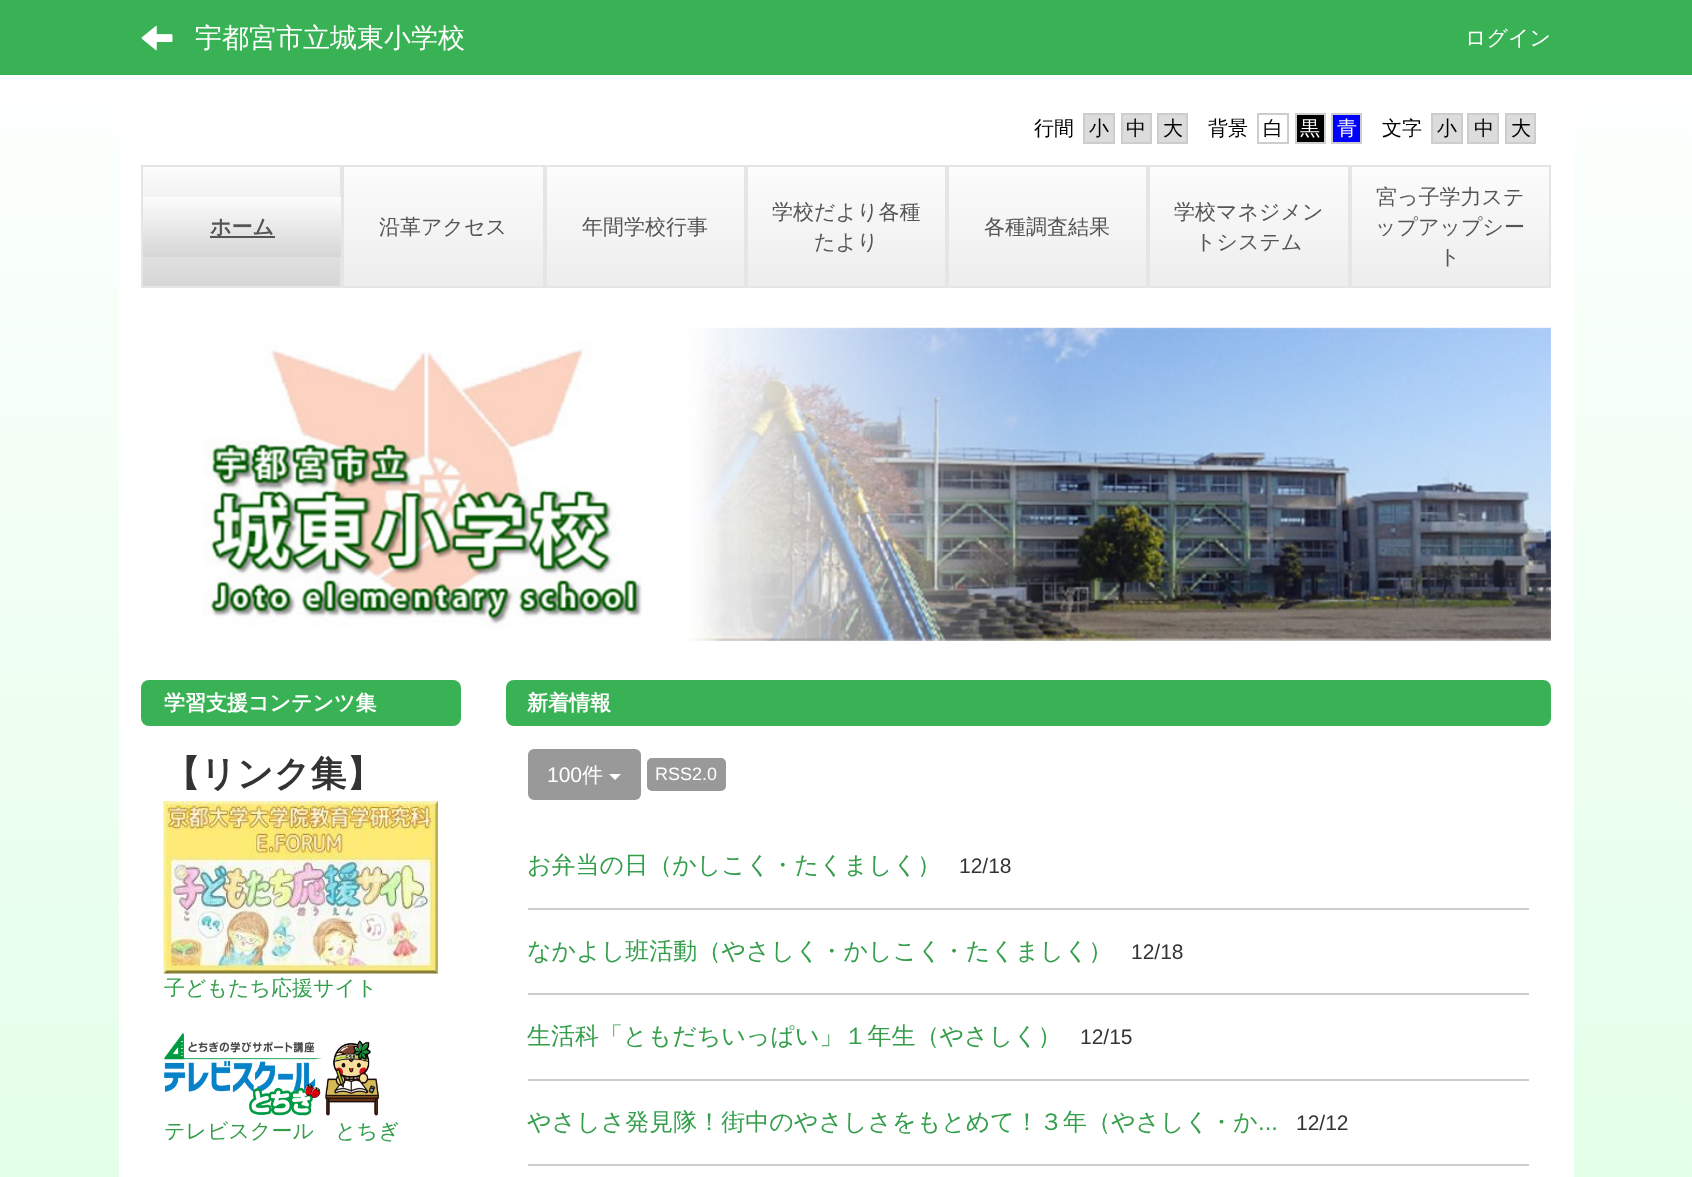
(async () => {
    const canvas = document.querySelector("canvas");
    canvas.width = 1692;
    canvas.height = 1177;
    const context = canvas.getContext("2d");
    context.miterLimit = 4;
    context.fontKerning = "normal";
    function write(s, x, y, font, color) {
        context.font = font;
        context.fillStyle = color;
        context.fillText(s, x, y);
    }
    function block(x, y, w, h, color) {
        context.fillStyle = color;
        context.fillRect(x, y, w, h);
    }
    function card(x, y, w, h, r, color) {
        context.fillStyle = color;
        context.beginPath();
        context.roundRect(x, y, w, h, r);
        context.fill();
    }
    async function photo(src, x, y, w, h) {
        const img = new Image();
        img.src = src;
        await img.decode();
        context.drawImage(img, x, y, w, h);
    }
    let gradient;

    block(0, 0, 1692, 1177, "rgb(255, 255, 255)");
    gradient = context.createLinearGradient(846, 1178, 846, 0);
    gradient.addColorStop(0, "rgb(227, 255, 233)");
    gradient.addColorStop(1, "rgb(255, 255, 255)");
    context.fillStyle = gradient;
    context.fillRect(0, 105, 1692, 1072);
    block(0, 0, 1692, 75, "rgb(57, 178, 85)");
    await photo("media/1.png", 141, 25, 32, 26);
    write("宇都宮市立城東小学校", 195, 47, "500 27px WenQuanYi Zen Hei", "rgb(255, 255, 255)");
    write("ログイン", 1465, 45, "500 21px WenQuanYi Zen Hei", "rgb(255, 255, 255)");
    block(119, 105, 1455, 1072, "rgb(255, 255, 255)");
    write("行間", 1034, 135, "500 20px WenQuanYi Zen Hei", "rgb(0, 0, 0)");
    context.fillStyle = "rgb(220, 220, 220)";
    context.beginPath();
    context.rect(1084, 114, 30, 29);
    context.fill();
    context.strokeStyle = "rgb(205, 205, 205)";
    context.lineWidth = 2;
    context.stroke();
    write("小", 1089, 135, "500 20px WenQuanYi Zen Hei", "rgb(0, 0, 0)");
    context.fillStyle = "rgb(220, 220, 220)";
    context.beginPath();
    context.rect(1122, 114, 29, 29);
    context.fill();
    context.stroke();
    write("中", 1126, 135, "500 20px WenQuanYi Zen Hei", "rgb(0, 0, 0)");
    context.fillStyle = "rgb(220, 220, 220)";
    context.beginPath();
    context.rect(1158, 114, 29, 29);
    context.fill();
    context.stroke();
    write("大", 1163, 135, "500 20px WenQuanYi Zen Hei", "rgb(0, 0, 0)");
    write("背景", 1208, 135, "500 20px WenQuanYi Zen Hei", "rgb(0, 0, 0)");
    context.strokeRect(1258, 114, 30, 29);
    write("白", 1263, 135, "500 20px WenQuanYi Zen Hei", "rgb(0, 0, 0)");
    context.beginPath();
    context.rect(1296, 114, 29, 29);
    context.fill();
    context.stroke();
    write("黒", 1300, 135, "500 20px WenQuanYi Zen Hei", "rgb(255, 255, 255)");
    context.fillStyle = "rgb(0, 0, 255)";
    context.beginPath();
    context.rect(1332, 114, 29, 29);
    context.fill();
    context.stroke();
    write("青", 1337, 135, "500 20px WenQuanYi Zen Hei", "rgb(255, 255, 255)");
    write("文字", 1382, 135, "500 20px WenQuanYi Zen Hei", "rgb(0, 0, 0)");
    context.fillStyle = "rgb(220, 220, 220)";
    context.beginPath();
    context.rect(1432, 114, 30, 29);
    context.fill();
    context.stroke();
    write("小", 1437, 135, "500 20px WenQuanYi Zen Hei", "rgb(0, 0, 0)");
    context.fillStyle = "rgb(220, 220, 220)";
    context.beginPath();
    context.rect(1468, 114, 30, 29);
    context.fill();
    context.stroke();
    write("中", 1474, 135, "500 20px WenQuanYi Zen Hei", "rgb(0, 0, 0)");
    context.fillStyle = "rgb(220, 220, 220)";
    context.beginPath();
    context.rect(1506, 114, 29, 29);
    context.fill();
    context.stroke();
    write("大", 1511, 135, "500 20px WenQuanYi Zen Hei", "rgb(0, 0, 0)");
    gradient = context.createLinearGradient(242, 167, 242, 287);
    gradient.addColorStop(0, "rgb(252, 252, 252)");
    gradient.addColorStop(1, "rgb(214, 214, 214)");
    context.fillStyle = gradient;
    context.fillRect(143, 167, 197, 119);
    context.strokeStyle = "rgb(229, 229, 229)";
    context.strokeRect(142, 166, 199, 121);
    gradient = context.createLinearGradient(242, 197, 242, 257);
    gradient.addColorStop(0, "rgb(252, 252, 252)");
    gradient.addColorStop(1, "rgb(214, 214, 214)");
    context.fillStyle = gradient;
    context.fillRect(143, 197, 198, 60);
    block(210, 236, 65, 2, "rgb(85, 85, 85)");
    write("ホーム", 210, 234, "bold 21px WenQuanYi Zen Hei", "rgb(85, 85, 85)");
    gradient = context.createLinearGradient(443, 167, 443, 287);
    gradient.addColorStop(0, "rgb(252, 252, 252)");
    gradient.addColorStop(1, "rgb(237, 237, 237)");
    context.fillStyle = gradient;
    context.fillRect(344, 167, 199, 119);
    context.strokeRect(343, 166, 201, 121);
    write("沿革アクセス", 379, 234, "500 21px WenQuanYi Zen Hei", "rgb(85, 85, 85)");
    gradient = context.createLinearGradient(645, 167, 645, 287);
    gradient.addColorStop(0, "rgb(252, 252, 252)");
    gradient.addColorStop(1, "rgb(237, 237, 237)");
    context.fillStyle = gradient;
    context.fillRect(547, 167, 197, 119);
    context.strokeRect(546, 166, 199, 121);
    write("年間学校行事", 582, 234, "500 21px WenQuanYi Zen Hei", "rgb(85, 85, 85)");
    gradient = context.createLinearGradient(846, 167, 846, 287);
    gradient.addColorStop(0, "rgb(252, 252, 252)");
    gradient.addColorStop(1, "rgb(237, 237, 237)");
    context.fillStyle = gradient;
    context.fillRect(748, 167, 197, 119);
    context.strokeRect(747, 166, 199, 121);
    write("学校だより各種", 772, 219, "500 21px WenQuanYi Zen Hei", "rgb(85, 85, 85)");
    write("たより", 814, 249, "500 21px WenQuanYi Zen Hei", "rgb(85, 85, 85)");
    gradient = context.createLinearGradient(1047, 167, 1047, 287);
    gradient.addColorStop(0, "rgb(252, 252, 252)");
    gradient.addColorStop(1, "rgb(237, 237, 237)");
    context.fillStyle = gradient;
    context.fillRect(949, 167, 197, 119);
    context.strokeRect(948, 166, 199, 121);
    write("各種調査結果", 984, 234, "500 21px WenQuanYi Zen Hei", "rgb(85, 85, 85)");
    gradient = context.createLinearGradient(1249, 167, 1249, 287);
    gradient.addColorStop(0, "rgb(252, 252, 252)");
    gradient.addColorStop(1, "rgb(237, 237, 237)");
    context.fillStyle = gradient;
    context.fillRect(1150, 167, 198, 119);
    context.strokeRect(1149, 166, 200, 121);
    write("学校マネジメン", 1174, 219, "500 21px WenQuanYi Zen Hei", "rgb(85, 85, 85)");
    write("トシステム", 1195, 249, "500 21px WenQuanYi Zen Hei", "rgb(85, 85, 85)");
    gradient = context.createLinearGradient(1451, 167, 1451, 287);
    gradient.addColorStop(0, "rgb(252, 252, 252)");
    gradient.addColorStop(1, "rgb(237, 237, 237)");
    context.fillStyle = gradient;
    context.fillRect(1352, 167, 197, 119);
    context.strokeRect(1351, 166, 199, 121);
    write("宮っ子学力ステ", 1376, 204, "500 21px WenQuanYi Zen Hei", "rgb(85, 85, 85)");
    write("ップアップシー", 1375, 234, "500 21px WenQuanYi Zen Hei", "rgb(85, 85, 85)");
    write("ト", 1439, 264, "500 21px WenQuanYi Zen Hei", "rgb(85, 85, 85)");
    await photo("media/2.png", 164, 325, 1387, 316);
    card(141, 680, 320, 46, 8, "rgb(57, 178, 85)");
    write("学習支援コンテンツ集", 164, 710, "bold 21px WenQuanYi Zen Hei", "rgb(255, 255, 255)");
    write("【リンク集】", 164, 786, "bold 36px WenQuanYi Zen Hei", "rgb(51, 51, 51)");
    await photo("media/3.png", 163, 801, 275, 173);
    write("子どもたち応援サイト", 164, 995, "500 21px WenQuanYi Zen Hei", "rgb(52, 158, 75)");
    await photo("media/4.png", 164, 1033, 215, 83);
    write("テレビスクール　とちぎ", 164, 1138, "500 21px WenQuanYi Zen Hei", "rgb(52, 158, 75)");
    card(506, 680, 1045, 46, 8, "rgb(57, 178, 85)");
    write("新着情報", 527, 710, "bold 21px WenQuanYi Zen Hei", "rgb(255, 255, 255)");
    context.fillStyle = "rgb(153, 153, 153)";
    context.beginPath();
    context.roundRect(529, 750, 111, 49, 5);
    context.fill();
    context.strokeStyle = "rgb(153, 153, 153)";
    context.stroke();
    write("100", 547, 782, "21px Liberation Sans", "rgb(255, 255, 255)");
    write("件", 582, 782, "500 21px WenQuanYi Zen Hei", "rgb(255, 255, 255)");
    context.beginPath();
    context.moveTo(609, 774);
    context.lineTo(621, 774);
    context.lineTo(615, 780);
    context.closePath();
    context.fill();
    context.fillStyle = "rgb(153, 153, 153)";
    context.beginPath();
    context.roundRect(648, 759, 77, 31, 4);
    context.fill();
    context.stroke();
    write("RSS2.0", 655, 780, "18px Liberation Sans", "rgb(255, 255, 255)");
    write("お弁当の日（かしこく・たくましく）", 527, 873, "500 24px WenQuanYi Zen Hei", "rgb(52, 158, 75)");
    write("12/18", 959, 873, "21px Liberation Sans", "rgb(51, 51, 51)");
    block(528, 908, 1001, 2, "rgb(204, 204, 204)");
    write("なかよし班活動（やさしく・かしこく・たくましく）", 527, 959, "500 24px WenQuanYi Zen Hei", "rgb(52, 158, 75)");
    write("12/18", 1131, 959, "21px Liberation Sans", "rgb(51, 51, 51)");
    block(528, 993, 1001, 2, "rgb(204, 204, 204)");
    write("生活科「ともだちいっぱい」１年生（やさしく）", 527, 1044, "500 24px WenQuanYi Zen Hei", "rgb(52, 158, 75)");
    write("12/15", 1080, 1044, "21px Liberation Sans", "rgb(51, 51, 51)");
    block(528, 1079, 1001, 2, "rgb(204, 204, 204)");
    write("やさしさ発見隊！街中のやさしさをもとめて！３年（やさしく・か", 527, 1130, "500 24px WenQuanYi Zen Hei", "rgb(52, 158, 75)");
    write("...", 1258, 1130, "24px Liberation Sans", "rgb(52, 158, 75)");
    write("12/12", 1296, 1130, "21px Liberation Sans", "rgb(51, 51, 51)");
    block(528, 1164, 1001, 2, "rgb(204, 204, 204)");
})();
